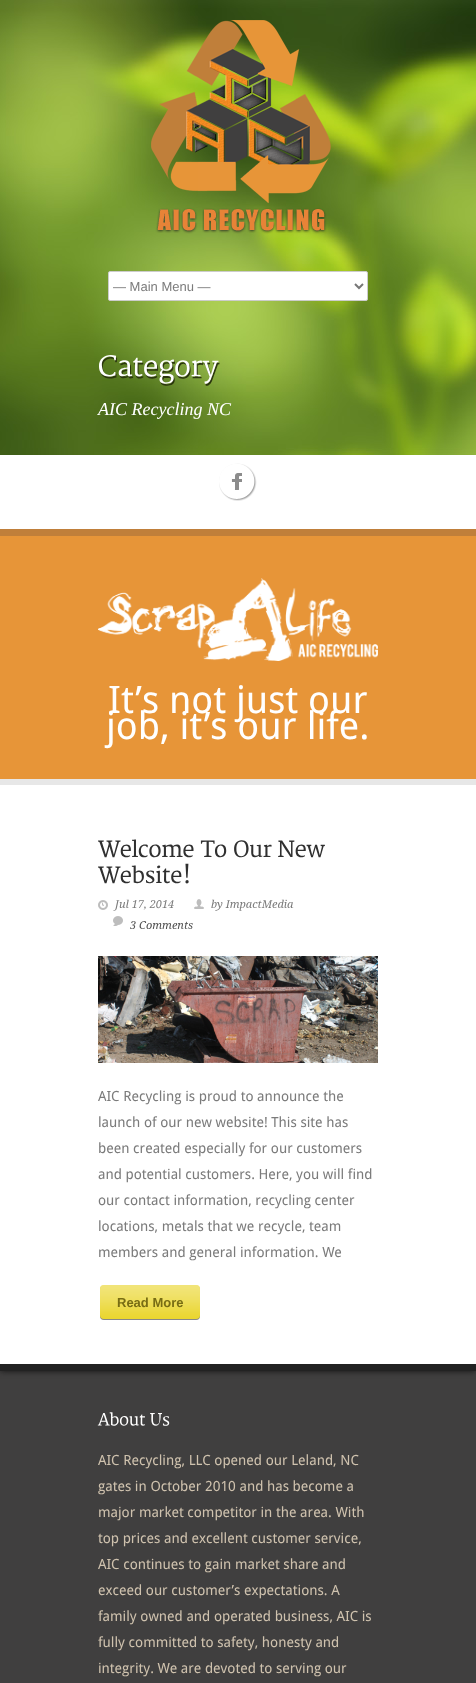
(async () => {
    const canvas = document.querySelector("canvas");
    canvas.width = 476;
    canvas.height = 1683;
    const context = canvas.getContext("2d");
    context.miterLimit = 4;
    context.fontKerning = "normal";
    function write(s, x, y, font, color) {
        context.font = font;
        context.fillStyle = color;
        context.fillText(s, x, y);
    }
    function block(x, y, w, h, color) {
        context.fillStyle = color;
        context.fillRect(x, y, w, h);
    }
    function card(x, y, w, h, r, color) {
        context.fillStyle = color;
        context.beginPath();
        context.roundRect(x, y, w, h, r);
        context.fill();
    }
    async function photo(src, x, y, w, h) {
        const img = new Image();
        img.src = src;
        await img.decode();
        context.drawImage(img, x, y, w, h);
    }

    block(0, 0, 476, 1683, "rgb(255, 255, 255)");
    await photo("media/1.png", 0, 0, 476, 455);
    await photo("media/2.png", 151, 20, 180, 214);
    context.beginPath();
    context.roundRect(108.5, 271.5, 259, 29, 1.5);
    context.fill();
    context.strokeStyle = "rgb(204, 204, 204)";
    context.stroke();
    context.beginPath();
    context.moveTo(355, 284);
    context.lineTo(359, 288);
    context.lineTo(363, 284);
    context.strokeStyle = "rgb(119, 119, 119)";
    context.lineWidth = 2;
    context.stroke();
    write("— Main Menu —", 113, 291, "13px Liberation Sans", "rgb(123, 123, 123)");
    await photo("media/3.png", 99, 355, 121, 31);
    write("AIC Recycling NC", 98, 415, "italic 18px Liberation Serif", "rgb(255, 255, 255)");
    await photo("media/4.png", 219, 463, 38, 38);
    block(0, 529, 476, 7, "rgb(192, 127, 58)");
    block(0, 536, 476, 243, "rgb(231, 149, 56)");
    await photo("media/5.png", 98, 578, 280, 83);
    write("It’s not just our", 108, 713, "38px Droid Sans", "rgb(255, 255, 255)");
    write("job, it’s our life.", 106, 739, "38px Droid Sans", "rgb(255, 255, 255)");
    block(0, 779, 476, 6, "rgb(231, 231, 231)");
    await photo("media/6.png", 98, 839, 96, 19);
    await photo("media/7.png", 200, 840, 27, 18);
    await photo("media/8.png", 234, 840, 38, 18);
    await photo("media/9.png", 278, 840, 47, 18);
    await photo("media/10.png", 98, 863, 91, 21);
    await photo("media/11.png", 98, 900, 10, 10);
    write("Jul 17, 2014", 115, 908, "italic 11px Droid Serif", "rgb(123, 123, 123)");
    await photo("media/12.png", 194, 899, 10, 10);
    write("by ImpactMedia", 211, 908, "italic 11px Droid Serif", "rgb(123, 123, 123)");
    await photo("media/13.png", 113, 916, 10, 10);
    write("3 Comments", 130, 929, "italic 11px Droid Serif", "rgb(79, 79, 79)");
    await photo("media/14.png", 98, 956, 280, 107);
    write("AIC Recycling is proud to announce the", 98, 1101, "14px Droid Sans", "rgb(123, 123, 123)");
    write("launch of our new website! This site has", 98, 1127, "14px Droid Sans", "rgb(123, 123, 123)");
    write("been created especially for our customers", 98, 1153, "14px Droid Sans", "rgb(123, 123, 123)");
    write("and potential customers. Here, you will find", 98, 1179, "14px Droid Sans", "rgb(123, 123, 123)");
    write("our contact information, recycling center", 98, 1205, "14px Droid Sans", "rgb(123, 123, 123)");
    write("locations, metals that we recycle, team", 98, 1231, "14px Droid Sans", "rgb(123, 123, 123)");
    write("members and general information. We", 98, 1257, "14px Droid Sans", "rgb(123, 123, 123)");
    context.fillStyle = "rgb(136, 136, 136)";
    context.filter = "blur(0.5px)";
    context.beginPath();
    context.roundRect(100, 1286, 100, 34, 4);
    context.fill();
    context.filter = "none";
    card(100, 1285, 100, 34, 4, "rgb(233, 212, 36)");
    await photo("media/15.png", 100, 1285, 100, 34);
    write("Read More", 117, 1307, "bold 13px Liberation Sans", "rgb(120, 109, 20)");
    block(0, 1371, 476, 312, "rgb(64, 63, 63)");
    context.save();
    context.beginPath();
    context.rect(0, 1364, 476, 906);
    context.clip();
    context.fillStyle = "rgb(17, 17, 17)";
    context.filter = "blur(3px)";
    context.beginPath();
    context.rect(0, 1364, 476, 7);
    context.fill();
    context.filter = "none";
    context.restore();
    block(0, 1364, 476, 7, "rgb(34, 34, 34)");
    await photo("media/16.png", 97, 1412, 48, 14);
    await photo("media/17.png", 150, 1413, 20, 13);
    write("AIC Recycling, LLC opened our Leland, NC", 98, 1465, "14px Droid Sans", "rgb(207, 194, 174)");
    write("gates in October 2010 and has become a", 98, 1491, "14px Droid Sans", "rgb(207, 194, 174)");
    write("major market competitor in the area. With", 98, 1517, "14px Droid Sans", "rgb(207, 194, 174)");
    write("top prices and excellent customer service,", 98, 1543, "14px Droid Sans", "rgb(207, 194, 174)");
    write("AIC continues to gain market share and", 98, 1569, "14px Droid Sans", "rgb(207, 194, 174)");
    write("exceed our customer’s expectations. A", 98, 1595, "14px Droid Sans", "rgb(207, 194, 174)");
    write("family owned and operated business, AIC is", 98, 1621, "14px Droid Sans", "rgb(207, 194, 174)");
    write("fully committed to safety, honesty and", 98, 1647, "14px Droid Sans", "rgb(207, 194, 174)");
    write("integrity. We are devoted to serving our", 98, 1673, "14px Droid Sans", "rgb(207, 194, 174)");
})();
